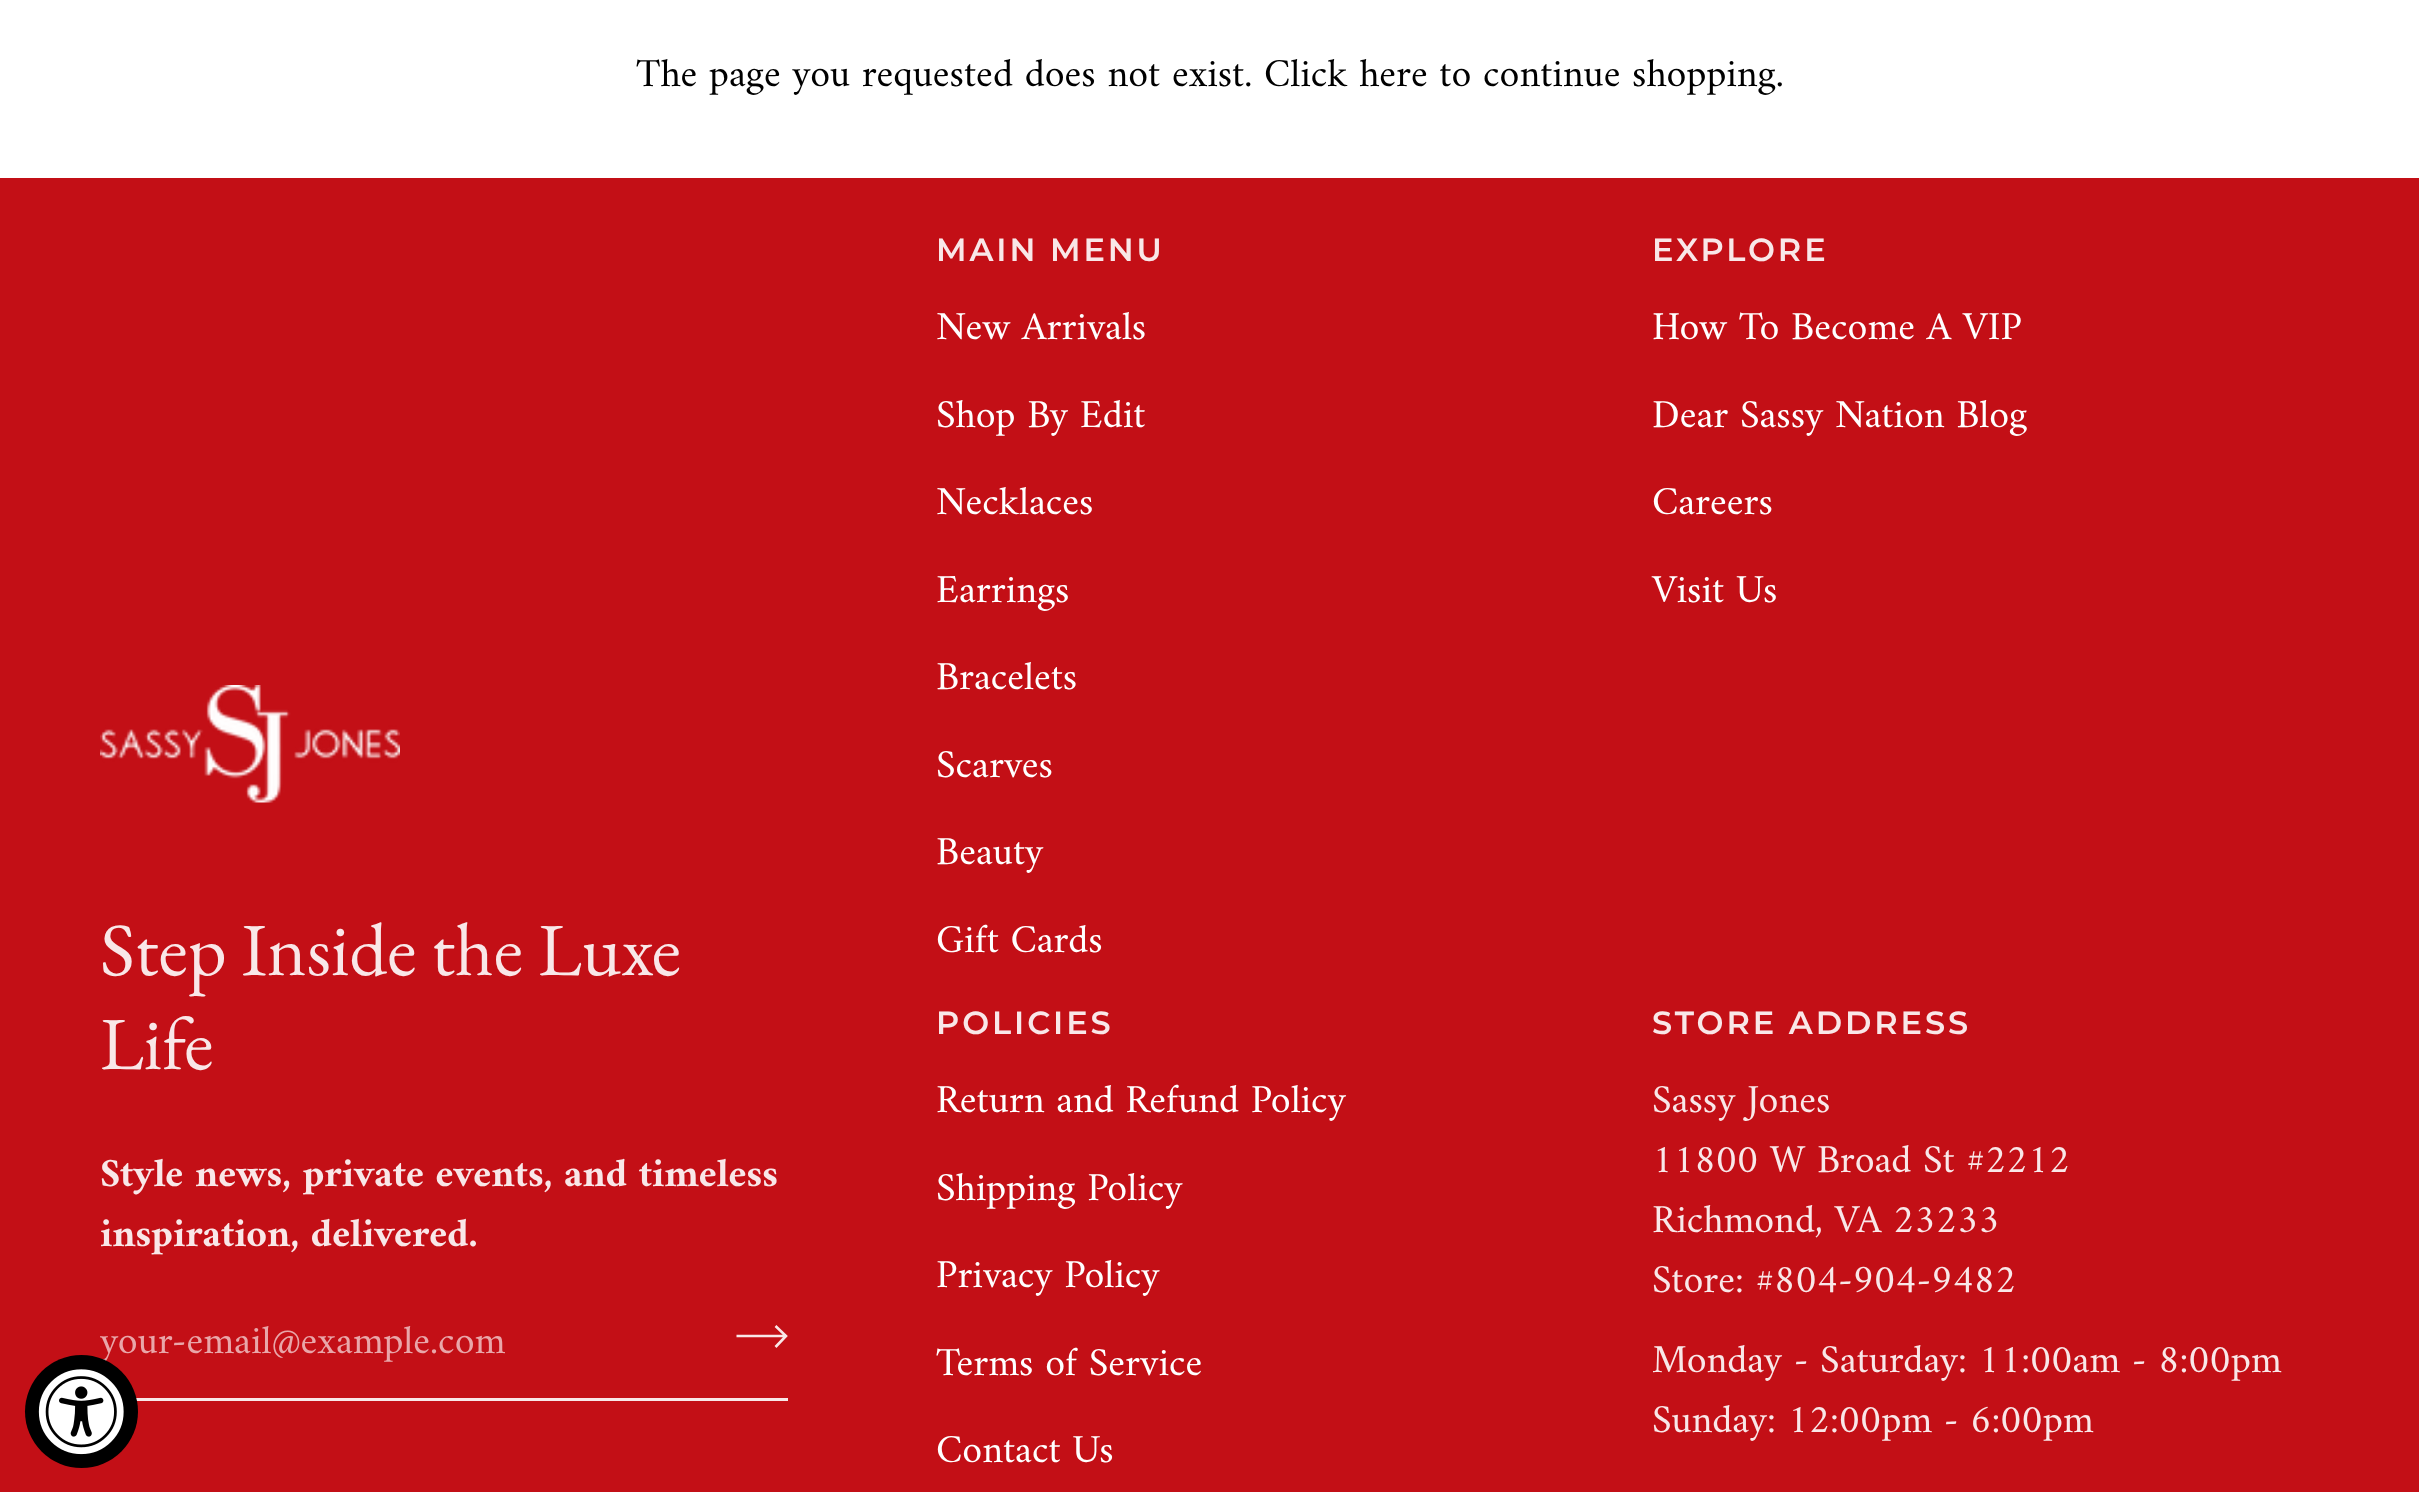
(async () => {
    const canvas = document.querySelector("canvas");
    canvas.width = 2419;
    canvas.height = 1492;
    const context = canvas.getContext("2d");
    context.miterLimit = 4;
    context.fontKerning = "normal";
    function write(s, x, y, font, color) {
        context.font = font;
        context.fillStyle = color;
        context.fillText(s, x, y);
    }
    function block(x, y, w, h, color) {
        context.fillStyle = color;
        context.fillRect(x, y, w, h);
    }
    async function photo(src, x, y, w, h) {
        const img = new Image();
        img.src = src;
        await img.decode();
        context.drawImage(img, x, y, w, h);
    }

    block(0, 0, 2419, 1492, "rgb(255, 255, 255)");
    write("The page you requested does not exist. Click here to continue shopping.", 636, 86, "40px Amiri", "rgb(0, 0, 0)");
    block(0, 178, 2419, 1314, "rgb(195, 15, 22)");
    block(136, 1398, 652, 3, "rgb(249, 231, 232)");
    write("your-email@example.com", 100, 1353, "40px Amiri", "rgb(233, 166, 169)");
    context.fillStyle = "rgb(0, 0, 0)";
    context.beginPath();
    context.arc(81.5, 1411.5, 56.5, 0, Math.PI * 2);
    context.fill();
    await photo("media/1.png", 38, 1369, 86, 86);
    await photo("media/2.png", 100, 685, 300, 118);
    write("Step Inside the Luxe", 100, 975, "75px EB Garamond", "rgb(249, 231, 232)");
    write("Life", 100, 1069, "75px EB Garamond", "rgb(249, 231, 232)");
    write("Style news, private events, and timeless", 100, 1186, "bold 40px Amiri", "rgb(249, 231, 232)");
    write("inspiration, delivered.", 100, 1246, "bold 40px Amiri", "rgb(249, 231, 232)");
    context.beginPath();
    context.moveTo(775.5, 1326);
    context.lineTo(786, 1336);
    context.lineTo(775.5, 1347);
    context.moveTo(736.5, 1336);
    context.lineTo(786, 1336);
    context.strokeStyle = "rgb(249, 231, 232)";
    context.lineWidth = 2.6;
    context.stroke();
    context.letterSpacing = "2.9px";
    write("MAIN MENU", 936, 261, "600 32px Montserrat", "rgb(249, 231, 232)");
    context.letterSpacing = "0px";
    write("New Arrivals", 936, 339, "40px Amiri", "rgb(255, 255, 255)");
    write("Shop By Edit", 936, 427, "40px Amiri", "rgb(255, 255, 255)");
    write("Necklaces", 936, 514, "40px Amiri", "rgb(255, 255, 255)");
    write("Earrings", 936, 602, "40px Amiri", "rgb(255, 255, 255)");
    write("Bracelets", 936, 689, "40px Amiri", "rgb(255, 255, 255)");
    write("Scarves", 936, 777, "40px Amiri", "rgb(255, 255, 255)");
    write("Beauty", 936, 864, "40px Amiri", "rgb(255, 255, 255)");
    write("Gift Cards", 936, 952, "40px Amiri", "rgb(255, 255, 255)");
    context.letterSpacing = "2.9px";
    write("EXPLORE", 1652, 261, "600 32px Montserrat", "rgb(249, 231, 232)");
    context.letterSpacing = "0px";
    write("How To Become A VIP", 1652, 339, "40px Amiri", "rgb(255, 255, 255)");
    write("Dear Sassy Nation Blog", 1652, 427, "40px Amiri", "rgb(255, 255, 255)");
    write("Careers", 1652, 514, "40px Amiri", "rgb(255, 255, 255)");
    write("Visit Us", 1652, 602, "40px Amiri", "rgb(255, 255, 255)");
    context.letterSpacing = "2.9px";
    write("POLICIES", 936, 1034, "600 32px Montserrat", "rgb(249, 231, 232)");
    context.letterSpacing = "0px";
    write("Return and Refund Policy", 936, 1112, "40px Amiri", "rgb(255, 255, 255)");
    write("Shipping Policy", 936, 1200, "40px Amiri", "rgb(255, 255, 255)");
    write("Privacy Policy", 936, 1287, "40px Amiri", "rgb(255, 255, 255)");
    write("Terms of Service", 936, 1375, "40px Amiri", "rgb(255, 255, 255)");
    write("Contact Us", 936, 1462, "40px Amiri", "rgb(255, 255, 255)");
    context.letterSpacing = "2.9px";
    write("STORE ADDRESS", 1652, 1034, "600 32px Montserrat", "rgb(249, 231, 232)");
    context.letterSpacing = "0px";
    write("Sassy Jones", 1652, 1112, "40px Amiri", "rgb(249, 231, 232)");
    write("11800 W Broad St #2212", 1652, 1172, "40px Amiri", "rgb(249, 231, 232)");
    write("Richmond, VA 23233", 1652, 1232, "40px Amiri", "rgb(249, 231, 232)");
    write("Store: #804-904-9482", 1652, 1292, "40px Amiri", "rgb(249, 231, 232)");
    write("Monday - Saturday: 11:00am - 8:00pm", 1652, 1372, "40px Amiri", "rgb(249, 231, 232)");
    write("Sunday: 12:00pm - 6:00pm", 1652, 1432, "40px Amiri", "rgb(249, 231, 232)");
})();
